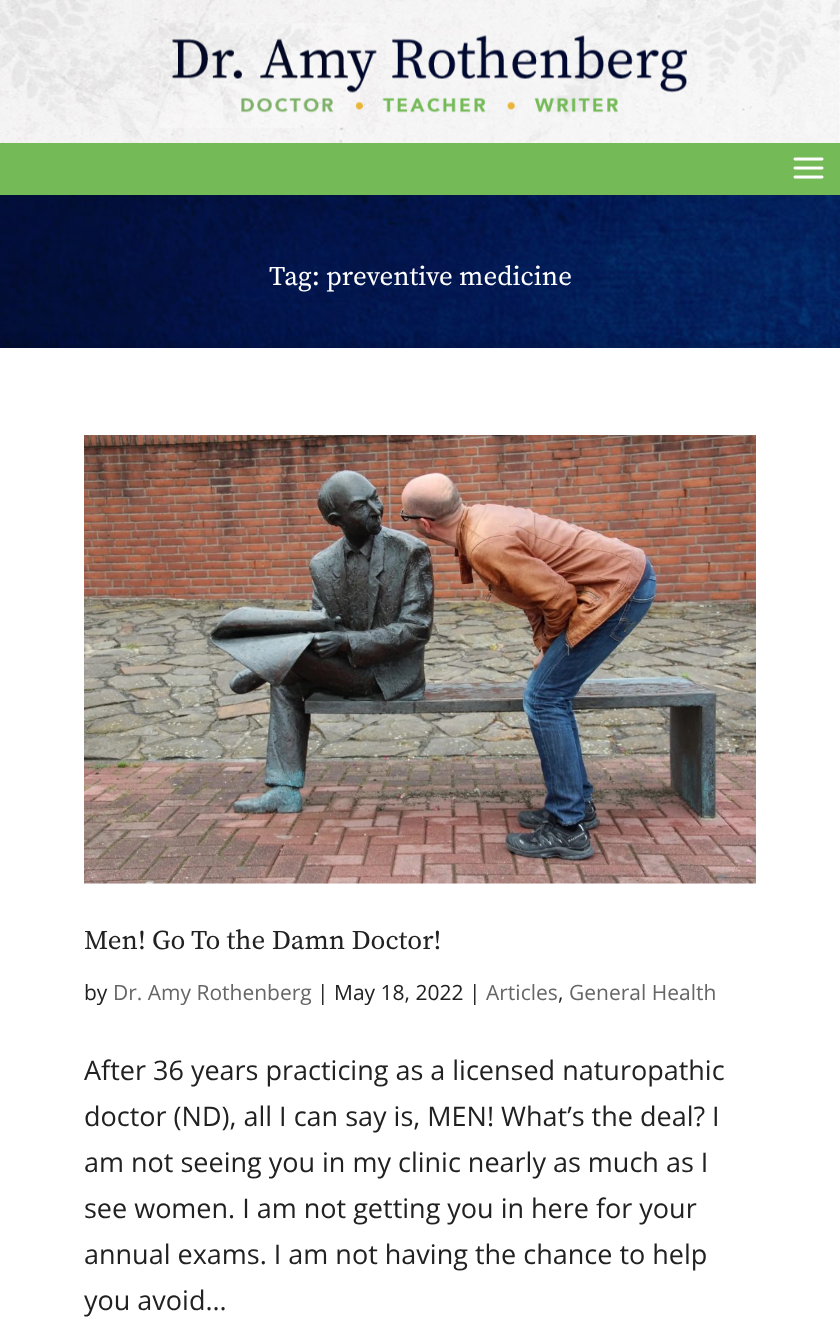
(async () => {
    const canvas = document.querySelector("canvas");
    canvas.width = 840;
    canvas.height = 1334;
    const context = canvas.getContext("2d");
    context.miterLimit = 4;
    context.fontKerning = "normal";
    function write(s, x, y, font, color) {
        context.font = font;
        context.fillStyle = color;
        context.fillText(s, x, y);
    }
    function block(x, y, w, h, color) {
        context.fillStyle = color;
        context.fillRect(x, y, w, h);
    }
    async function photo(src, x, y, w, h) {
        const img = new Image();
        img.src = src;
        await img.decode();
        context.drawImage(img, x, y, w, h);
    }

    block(0, 0, 840, 1334, "rgb(255, 255, 255)");
    await photo("media/1.png", 0, 0, 840, 143);
    await photo("media/2.png", 159, 23, 528, 105);
    block(0, 143, 840, 52, "rgb(116, 186, 87)");
    await photo("media/3.png", 793, 157, 31, 22);
    await photo("media/4.png", 0, 195, 840, 153);
    write("Tag: preventive medicine", 269, 285, "27px Source Serif Pro", "rgb(255, 255, 255)");
    context.fillStyle = "rgba(0, 0, 0, 0.2)";
    context.filter = "blur(7.5px)";
    context.beginPath();
    context.rect(0, 348, 840, 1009);
    context.fill();
    context.filter = "none";
    block(0, 348, 840, 986, "rgb(255, 255, 255)");
    await photo("media/5.png", 84, 435, 672, 449);
    write("Men! Go To the Damn Doctor!", 84, 949, "27px Source Serif Pro", "rgb(33, 33, 33)");
    write("by", 84, 1000, "21px Open Sans", "rgb(33, 33, 33)");
    write("Dr. Amy Rothenberg", 113, 1000, "21px Open Sans", "rgb(102, 102, 102)");
    write("| May 18, 2022 |", 317, 1000, "21px Open Sans", "rgb(33, 33, 33)");
    write("Articles", 486, 1000, "21px Open Sans", "rgb(102, 102, 102)");
    write(",", 558, 1000, "21px Open Sans", "rgb(33, 33, 33)");
    write("General Health", 569, 1000, "21px Open Sans", "rgb(102, 102, 102)");
    write("After 36 years practicing as a licensed naturopathic", 84, 1080, "27px Open Sans", "rgb(33, 33, 33)");
    write("doctor (ND), all I can say is, MEN! What’s the deal? I", 84, 1126, "27px Open Sans", "rgb(33, 33, 33)");
    write("am not seeing you in my clinic nearly as much as I", 84, 1172, "27px Open Sans", "rgb(33, 33, 33)");
    write("see women. I am not getting you in here for your", 84, 1218, "27px Open Sans", "rgb(33, 33, 33)");
    write("annual exams. I am not having the chance to help", 84, 1264, "27px Open Sans", "rgb(33, 33, 33)");
    write("you avoid...", 84, 1310, "27px Open Sans", "rgb(33, 33, 33)");
})();
